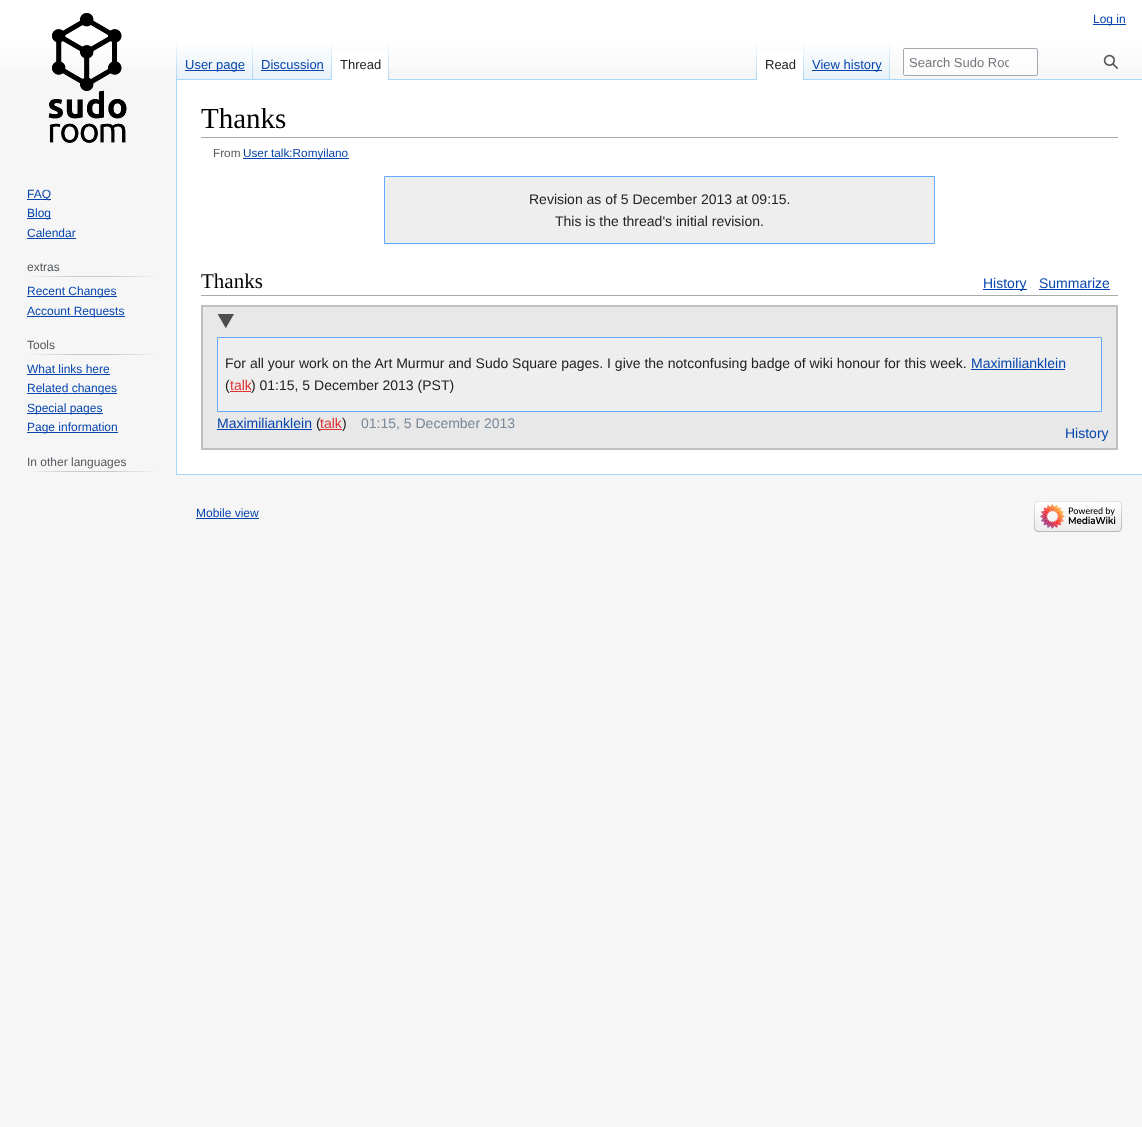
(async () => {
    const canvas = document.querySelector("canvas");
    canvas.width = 1142;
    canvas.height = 1127;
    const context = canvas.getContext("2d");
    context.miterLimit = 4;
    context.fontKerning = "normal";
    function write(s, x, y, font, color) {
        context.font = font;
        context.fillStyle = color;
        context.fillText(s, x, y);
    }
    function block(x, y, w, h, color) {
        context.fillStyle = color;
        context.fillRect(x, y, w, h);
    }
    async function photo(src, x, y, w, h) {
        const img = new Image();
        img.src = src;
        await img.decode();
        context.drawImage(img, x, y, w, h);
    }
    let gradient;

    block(0, 0, 1142, 1127, "rgb(246, 246, 246)");
    gradient = context.createLinearGradient(571, 0, 571, 80);
    gradient.addColorStop(0.5, "rgb(255, 255, 255)");
    gradient.addColorStop(1, "rgb(246, 246, 246)");
    context.fillStyle = gradient;
    context.fillRect(0, 0, 1142, 69);
    block(1093, 24, 33, 1, "rgb(6, 69, 173)");
    write("Log in", 1093, 23, "12px Liberation Sans", "rgb(6, 69, 173)");
    block(176, 474, 966, 1, "rgb(167, 215, 249)");
    block(176, 79, 1, 396, "rgb(167, 215, 249)");
    gradient = context.createLinearGradient(177, 40, 177, 80);
    gradient.addColorStop(0, "rgba(167, 215, 249, 0)");
    gradient.addColorStop(1, "rgb(167, 215, 249)");
    context.fillStyle = gradient;
    context.fillRect(176, 40, 1, 40);
    gradient = context.createLinearGradient(215, 80, 215, 40);
    gradient.addColorStop(0, "rgb(119, 193, 246)");
    gradient.addColorStop(0.03, "rgb(232, 242, 248)");
    gradient.addColorStop(1, "rgb(255, 255, 255)");
    context.fillStyle = gradient;
    context.fillRect(177, 46, 76, 34);
    gradient = context.createLinearGradient(253, 40, 253, 80);
    gradient.addColorStop(0, "rgba(167, 215, 249, 0)");
    gradient.addColorStop(1, "rgb(167, 215, 249)");
    context.fillStyle = gradient;
    context.fillRect(252, 40, 1, 40);
    block(185, 70, 60, 1, "rgb(6, 69, 173)");
    write("User page", 185, 69, "13px Liberation Sans", "rgb(6, 69, 173)");
    gradient = context.createLinearGradient(293, 80, 293, 40);
    gradient.addColorStop(0, "rgb(119, 193, 246)");
    gradient.addColorStop(0.03, "rgb(232, 242, 248)");
    gradient.addColorStop(1, "rgb(255, 255, 255)");
    context.fillStyle = gradient;
    context.fillRect(253, 46, 79, 34);
    gradient = context.createLinearGradient(332, 40, 332, 80);
    gradient.addColorStop(0, "rgba(167, 215, 249, 0)");
    gradient.addColorStop(1, "rgb(167, 215, 249)");
    context.fillStyle = gradient;
    context.fillRect(331, 40, 1, 40);
    write("Discussion", 261, 69, "13px Liberation Sans", "rgb(6, 69, 173)");
    block(261, 70, 63, 1, "rgb(6, 69, 173)");
    block(332, 51, 56, 29, "rgb(255, 255, 255)");
    gradient = context.createLinearGradient(389, 40, 389, 80);
    gradient.addColorStop(0, "rgb(255, 255, 255)");
    gradient.addColorStop(1, "rgb(167, 215, 249)");
    context.fillStyle = gradient;
    context.fillRect(388, 40, 1, 40);
    write("Thread", 340, 69, "13px Liberation Sans", "rgb(32, 33, 34)");
    block(389, 79, 753, 1, "rgb(167, 215, 249)");
    gradient = context.createLinearGradient(757, 40, 757, 80);
    gradient.addColorStop(0, "rgba(167, 215, 249, 0)");
    gradient.addColorStop(1, "rgb(167, 215, 249)");
    context.fillStyle = gradient;
    context.fillRect(756, 40, 1, 40);
    block(757, 51, 46, 29, "rgb(255, 255, 255)");
    gradient = context.createLinearGradient(804, 40, 804, 80);
    gradient.addColorStop(0, "rgb(255, 255, 255)");
    gradient.addColorStop(1, "rgb(167, 215, 249)");
    context.fillStyle = gradient;
    context.fillRect(803, 40, 1, 40);
    write("Read", 765, 69, "13px Liberation Sans", "rgb(32, 33, 34)");
    gradient = context.createLinearGradient(847, 80, 847, 40);
    gradient.addColorStop(0, "rgb(119, 193, 246)");
    gradient.addColorStop(0.03, "rgb(232, 242, 248)");
    gradient.addColorStop(1, "rgb(255, 255, 255)");
    context.fillStyle = gradient;
    context.fillRect(804, 46, 86, 33);
    gradient = context.createLinearGradient(890, 40, 890, 80);
    gradient.addColorStop(0, "rgba(167, 215, 249, 0)");
    gradient.addColorStop(1, "rgb(167, 215, 249)");
    context.fillStyle = gradient;
    context.fillRect(889, 40, 1, 40);
    block(812, 70, 70, 1, "rgb(6, 69, 173)");
    write("View history", 812, 69, "13px Liberation Sans", "rgb(6, 69, 173)");
    context.fillStyle = "rgba(255, 255, 255, 0.5)";
    context.beginPath();
    context.roundRect(903.5, 48.5, 134, 27, 1.5);
    context.fill();
    context.strokeStyle = "rgb(162, 169, 177)";
    context.stroke();
    context.save();
    context.beginPath();
    context.rect(909, 55, 100, 15);
    context.clip();
    write("Search Sudo Roo", 909, 67, "13px Liberation Sans", "rgb(114, 119, 125)");
    context.restore();
    await photo("media/1.png", 1103, 54, 15, 15);
    await photo("media/2.png", 48, 13, 79, 130);
    block(27, 199, 24, 1, "rgb(6, 69, 173)");
    write("FAQ", 27, 198, "12px Liberation Sans", "rgb(6, 69, 173)");
    block(27, 218, 24, 1, "rgb(6, 69, 173)");
    write("Blog", 27, 217, "12px Liberation Sans", "rgb(6, 69, 173)");
    write("Calendar", 27, 237, "12px Liberation Sans", "rgb(6, 69, 173)");
    block(27, 238, 49, 1, "rgb(6, 69, 173)");
    gradient = context.createLinearGradient(27, 277, 158, 277);
    gradient.addColorStop(0, "rgb(246, 246, 246)");
    gradient.addColorStop(0.33, "rgb(200, 204, 209)");
    gradient.addColorStop(0.66, "rgb(200, 204, 209)");
    gradient.addColorStop(1, "rgb(246, 246, 246)");
    context.fillStyle = gradient;
    context.fillRect(27, 276, 131, 1);
    write("extras", 27, 271, "12px Liberation Sans", "rgb(84, 89, 93)");
    block(27, 296, 90, 1, "rgb(6, 69, 173)");
    write("Recent Changes", 27, 295, "12px Liberation Sans", "rgb(6, 69, 173)");
    block(27, 316, 98, 1, "rgb(6, 69, 173)");
    write("Account Requests", 27, 315, "12px Liberation Sans", "rgb(6, 69, 173)");
    gradient = context.createLinearGradient(27, 355, 158, 355);
    gradient.addColorStop(0, "rgb(246, 246, 246)");
    gradient.addColorStop(0.33, "rgb(200, 204, 209)");
    gradient.addColorStop(0.66, "rgb(200, 204, 209)");
    gradient.addColorStop(1, "rgb(246, 246, 246)");
    context.fillStyle = gradient;
    context.fillRect(27, 354, 131, 1);
    write("Tools", 27, 349, "12px Liberation Sans", "rgb(84, 89, 93)");
    write("What links here", 27, 373, "12px Liberation Sans", "rgb(6, 69, 173)");
    block(27, 374, 83, 1, "rgb(6, 69, 173)");
    block(27, 393, 90, 1, "rgb(6, 69, 173)");
    write("Related changes", 27, 392, "12px Liberation Sans", "rgb(6, 69, 173)");
    block(27, 413, 76, 1, "rgb(6, 69, 173)");
    write("Special pages", 27, 412, "12px Liberation Sans", "rgb(6, 69, 173)");
    block(27, 432, 91, 1, "rgb(6, 69, 173)");
    write("Page information", 27, 431, "12px Liberation Sans", "rgb(6, 69, 173)");
    gradient = context.createLinearGradient(27, 472, 158, 472);
    gradient.addColorStop(0, "rgb(246, 246, 246)");
    gradient.addColorStop(0.33, "rgb(200, 204, 209)");
    gradient.addColorStop(0.66, "rgb(200, 204, 209)");
    gradient.addColorStop(1, "rgb(246, 246, 246)");
    context.fillStyle = gradient;
    context.fillRect(27, 471, 131, 1);
    write("In other languages", 27, 466, "12px Liberation Sans", "rgb(84, 89, 93)");
    block(177, 80, 965, 394, "rgb(255, 255, 255)");
    block(201, 137, 917, 1, "rgb(162, 169, 177)");
    write("Thanks", 201, 128, "29px Liberation Serif", "rgb(0, 0, 0)");
    write("From", 213, 157, "11.75px Liberation Sans", "rgb(84, 89, 93)");
    block(243, 158, 106, 1, "rgb(6, 69, 173)");
    write("User talk:Romyilano", 243, 157, "11.75px Liberation Sans", "rgb(6, 69, 173)");
    context.fillStyle = "rgb(238, 238, 238)";
    context.beginPath();
    context.rect(384.5, 176.5, 550, 67);
    context.fill();
    context.strokeStyle = "rgb(102, 170, 255)";
    context.stroke();
    write("Revision as of 5 December 2013 at 09:15.", 529, 204, "14px Liberation Sans", "rgb(32, 33, 34)");
    write("This is the thread's initial revision.", 555, 226, "14px Liberation Sans", "rgb(32, 33, 34)");
    block(201, 295, 917, 1, "rgb(170, 170, 170)");
    write("Thanks", 201, 288, "21px Liberation Serif", "rgb(0, 0, 0)");
    block(983, 289, 44, 1, "rgb(6, 69, 173)");
    write("History", 983, 288, "14px Liberation Sans", "rgb(6, 69, 173)");
    write("Summarize", 1039, 288, "14px Liberation Sans", "rgb(6, 69, 173)");
    block(1039, 289, 71, 1, "rgb(6, 69, 173)");
    context.fillStyle = "rgb(232, 232, 232)";
    context.beginPath();
    context.rect(202, 306, 915, 143);
    context.fill();
    context.strokeStyle = "rgb(192, 192, 192)";
    context.lineWidth = 2;
    context.stroke();
    await photo("media/3.png", 217, 314, 17, 14);
    context.fillStyle = "rgb(238, 238, 238)";
    context.beginPath();
    context.rect(217.5, 337.5, 884, 74);
    context.fill();
    context.strokeStyle = "rgb(102, 170, 255)";
    context.lineWidth = 1;
    context.stroke();
    write("For all your work on the Art Murmur and Sudo Square pages. I give the notconfusing badge of wiki honour for this week.", 225, 368, "14px Liberation Sans", "rgb(32, 33, 34)");
    write("Maximilianklein", 971, 368, "14px Liberation Sans", "rgb(6, 69, 173)");
    block(971, 369, 94, 1, "rgb(6, 69, 173)");
    write("(", 225, 390, "14px Liberation Sans", "rgb(32, 33, 34)");
    write("talk", 230, 390, "14px Liberation Sans", "rgb(221, 51, 51)");
    block(230, 391, 21, 1, "rgb(221, 51, 51)");
    write(") 01:15, 5 December 2013 (PST)", 251, 390, "14px Liberation Sans", "rgb(32, 33, 34)");
    write("Maximilianklein", 217, 428, "14px Liberation Sans", "rgb(6, 69, 173)");
    block(217, 429, 95, 1, "rgb(6, 69, 173)");
    write("(", 316, 428, "14px Liberation Sans", "rgb(32, 33, 34)");
    block(320, 429, 22, 1, "rgb(221, 51, 51)");
    write("talk", 320, 428, "14px Liberation Sans", "rgb(221, 51, 51)");
    write(")", 342, 428, "14px Liberation Sans", "rgb(32, 33, 34)");
    write("01:15, 5 December 2013", 361, 428, "14px Liberation Sans", "rgb(119, 136, 153)");
    write("History", 1065, 438, "14px Liberation Sans", "rgb(6, 69, 173)");
    write("Mobile view", 196, 517, "12px Liberation Sans", "rgb(6, 69, 173)");
    block(196, 518, 63, 1, "rgb(6, 69, 173)");
    await photo("media/4.png", 1034, 501, 88, 31);
})();
